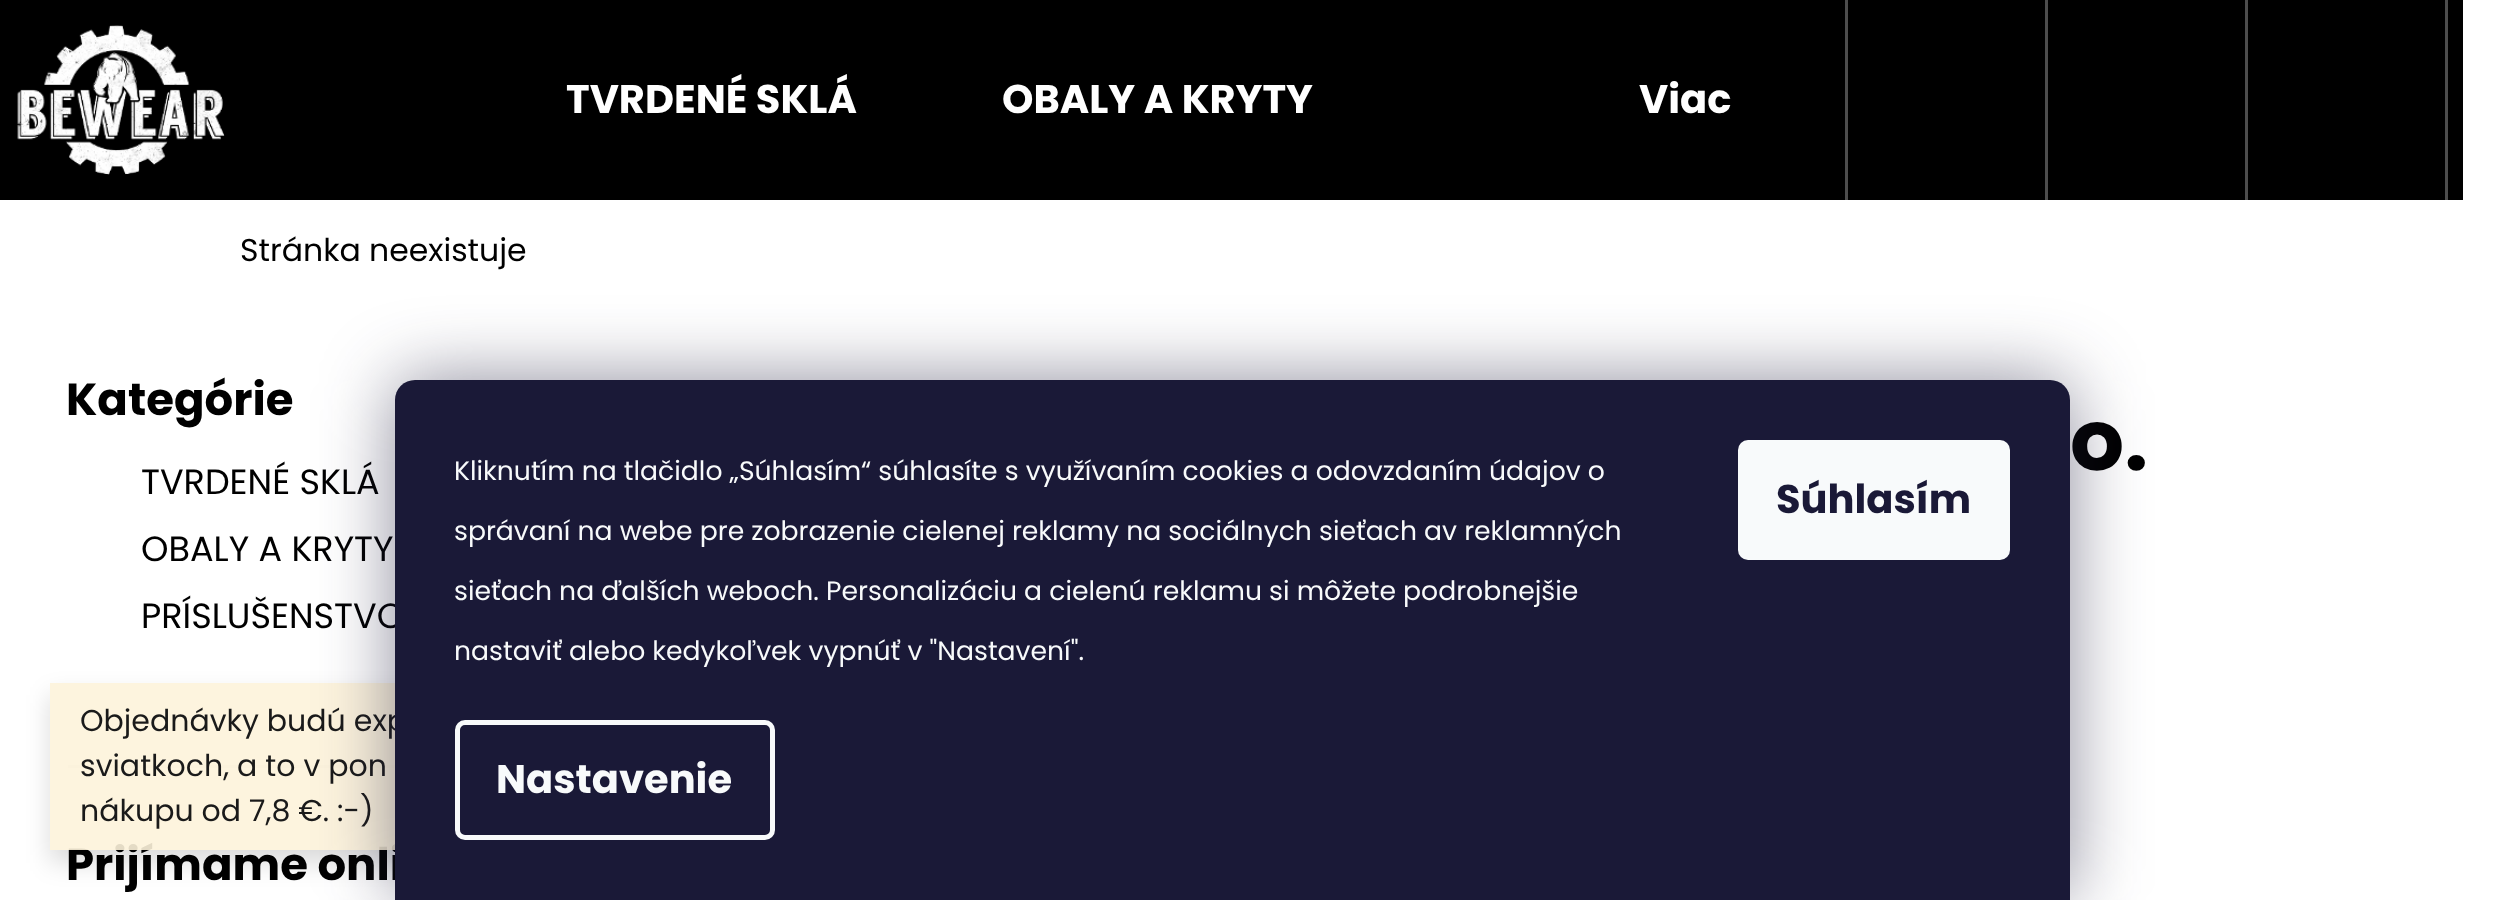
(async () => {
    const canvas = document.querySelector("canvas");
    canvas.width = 2500;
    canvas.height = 900;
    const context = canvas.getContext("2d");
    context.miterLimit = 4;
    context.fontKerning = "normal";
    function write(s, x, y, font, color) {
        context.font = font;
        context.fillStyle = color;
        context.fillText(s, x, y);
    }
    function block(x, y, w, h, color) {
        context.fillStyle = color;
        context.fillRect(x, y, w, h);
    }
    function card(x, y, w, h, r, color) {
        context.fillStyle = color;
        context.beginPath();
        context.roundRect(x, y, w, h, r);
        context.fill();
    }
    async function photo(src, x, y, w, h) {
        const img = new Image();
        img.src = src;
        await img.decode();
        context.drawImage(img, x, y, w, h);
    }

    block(0, 0, 2500, 900, "rgb(255, 255, 255)");
    block(0, 0, 2463, 200, "rgb(0, 0, 0)");
    await photo("media/1.png", 17, 25, 208, 150);
    write("TVRDENÉ SKLÁ", 566, 113, "bold 40px Poppins", "rgb(255, 255, 255)");
    write("OBALY A KRYTY", 1002, 113, "bold 40px Poppins", "rgb(255, 255, 255)");
    write("Viac", 1639, 113, "bold 40px Poppins", "rgb(255, 255, 255)");
    block(2445, 0, 3, 200, "rgb(77, 77, 77)");
    block(1845, 0, 3, 200, "rgb(77, 77, 77)");
    block(2045, 0, 3, 200, "rgb(77, 77, 77)");
    block(2245, 0, 3, 200, "rgb(77, 77, 77)");
    write("Stránka neexistuje", 240, 261, "31.5px Poppins", "rgb(0, 0, 0)");
    write("Kategórie", 66, 415, "bold 45px Poppins", "rgb(0, 0, 0)");
    write("TVRDENÉ SKLÁ", 141, 494, "35px Poppins", "rgb(0, 0, 0)");
    write("OBALY A KRYTY", 141, 561, "35px Poppins", "rgb(0, 0, 0)");
    write("PRÍSLUŠENSTVO", 141, 628, "35px Poppins", "rgb(0, 0, 0)");
    block(68, 765, 327, 3, "rgb(230, 230, 230)");
    write("Prijímame onli", 66, 880, "bold 45px Poppins", "rgb(0, 0, 0)");
    write("o.", 2070, 470, "bold 85px Poppins", "rgb(0, 0, 0)");
    context.save();
    context.beginPath();
    context.moveTo(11, 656);
    context.lineTo(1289, 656);
    context.lineTo(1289, 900);
    context.lineTo(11, 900);
    context.closePath();
    context.moveTo(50, 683);
    context.lineTo(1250, 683);
    context.lineTo(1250, 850);
    context.lineTo(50, 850);
    context.closePath();
    context.clip("evenodd");
    context.fillStyle = "rgba(0, 0, 0, 0.14)";
    context.filter = "blur(12.5px)";
    context.beginPath();
    context.rect(50, 695, 1200, 168);
    context.fill();
    context.filter = "none";
    context.restore();
    block(50, 683, 345, 167, "rgba(253, 243, 218, 0.9)");
    write("Objednávky budú exp", 80, 731, "30px Poppins", "rgb(26, 26, 26)");
    write("sviatkoch, a to v pon", 80, 776, "30px Poppins", "rgb(26, 26, 26)");
    write("nákupu od 7,8 €. :-)", 80, 821, "30px Poppins", "rgb(26, 26, 26)");
    context.fillStyle = "rgba(27, 25, 57, 0.5)";
    context.filter = "blur(37.5px)";
    context.beginPath();
    context.roundRect(395, 380, 1675, 520, 20);
    context.fill();
    context.filter = "none";
    context.fillStyle = "rgb(26, 25, 55)";
    context.beginPath();
    context.roundRect(395, 380, 1675, 520, [20, 20, 0, 0]);
    context.fill();
    write("Kliknutím na tlačidlo „Súhlasím“ súhlasíte s využívaním cookies a odovzdaním údajov o", 454, 480, "26.65px Poppins", "rgb(248, 250, 251)");
    write("správaní na webe pre zobrazenie cielenej reklamy na sociálnych sieťach av reklamných", 454, 540, "26.65px Poppins", "rgb(248, 250, 251)");
    write("sieťach na ďalších weboch. Personalizáciu a cielenú reklamu si môžete podrobnejšie", 454, 600, "26.65px Poppins", "rgb(248, 250, 251)");
    write("nastaviť alebo kedykoľvek vypnúť v \"Nastavení\".", 454, 660, "26.65px Poppins", "rgb(248, 250, 251)");
    context.beginPath();
    context.roundRect(457.5, 722.5, 315, 115, 7.5);
    context.strokeStyle = "rgb(248, 250, 251)";
    context.lineWidth = 5;
    context.stroke();
    write("Nastavenie", 496, 793, "bold 40px Poppins", "rgb(248, 250, 251)");
    card(1738, 440, 272, 120, 10, "rgb(248, 250, 251)");
    write("Súhlasím", 1776, 513, "bold 40px Poppins", "rgb(26, 25, 55)");
})();
